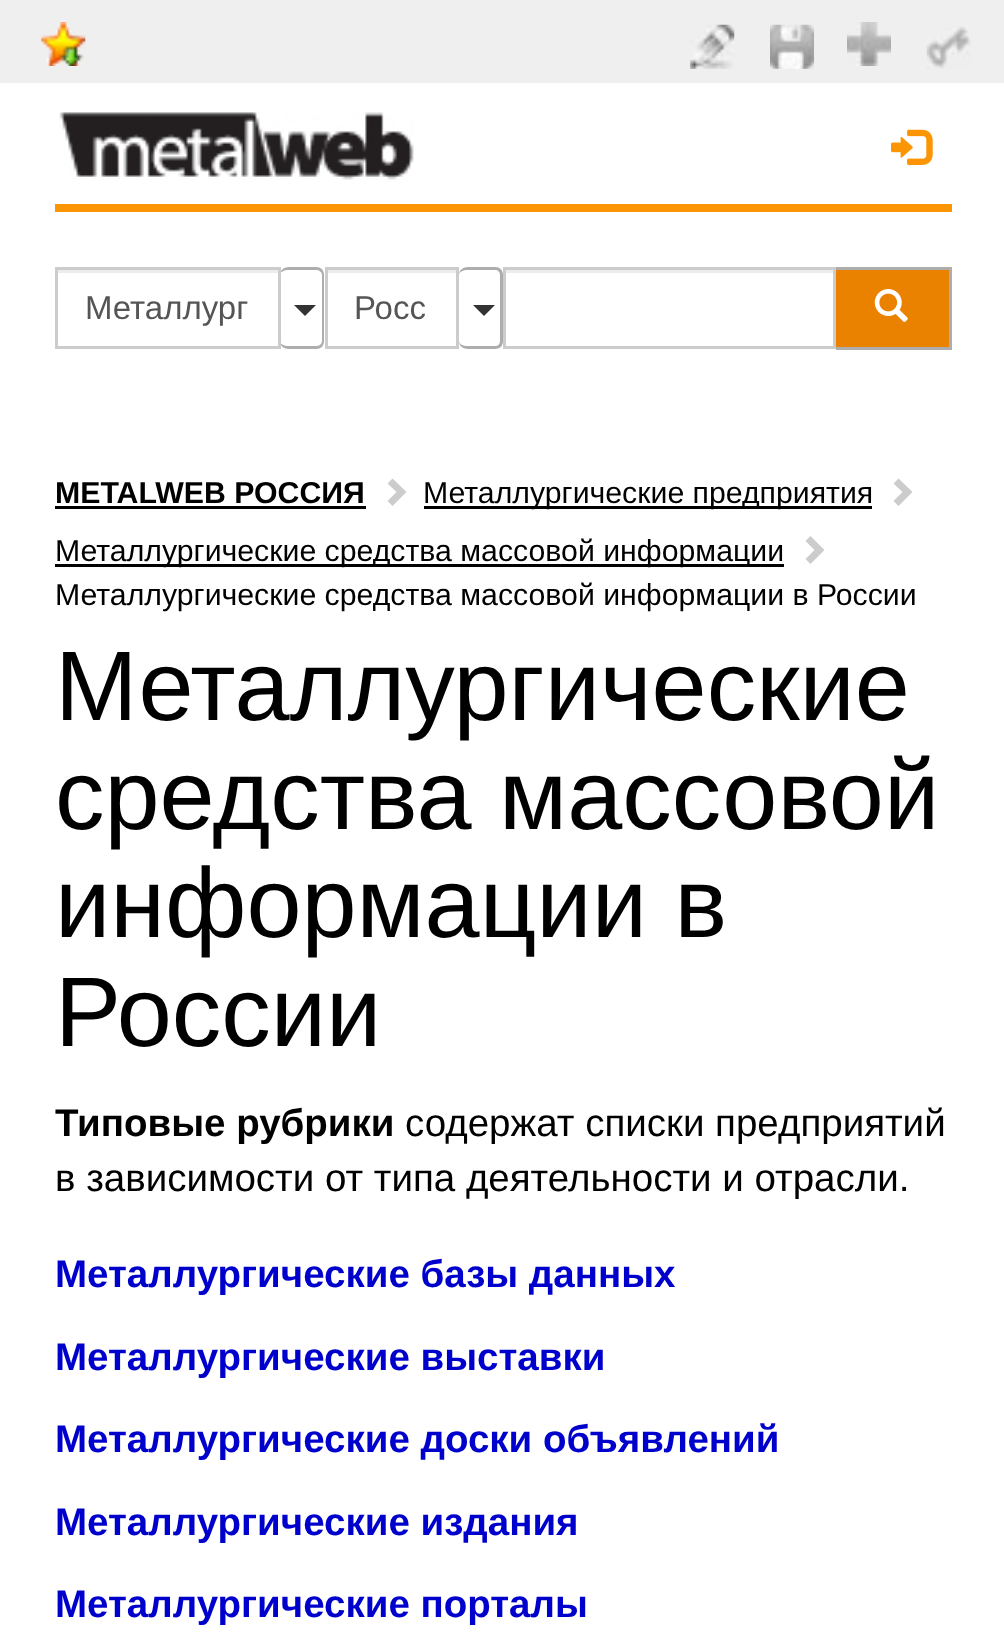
(async () => {
    const canvas = document.querySelector("canvas");
    canvas.width = 1004;
    canvas.height = 1633;
    const context = canvas.getContext("2d");
    context.miterLimit = 4;
    context.fontKerning = "normal";
    function write(s, x, y, font, color) {
        context.font = font;
        context.fillStyle = color;
        context.fillText(s, x, y);
    }
    function block(x, y, w, h, color) {
        context.fillStyle = color;
        context.fillRect(x, y, w, h);
    }
    async function photo(src, x, y, w, h) {
        const img = new Image();
        img.src = src;
        await img.decode();
        context.drawImage(img, x, y, w, h);
    }

    block(0, 0, 1004, 1633, "rgb(255, 255, 255)");
    block(0, 0, 1004, 83, "rgb(239, 239, 239)");
    await photo("media/1.png", 41, 22, 45, 44);
    await photo("media/2.png", 690, 24, 45, 45);
    await photo("media/3.png", 770, 24, 44, 45);
    await photo("media/4.png", 847, 22, 44, 44);
    await photo("media/5.png", 926, 26, 45, 43);
    await photo("media/6.png", 59, 112, 355, 68);
    await photo("media/7.png", 891, 129, 42, 36);
    block(55, 204, 897, 8, "rgb(252, 149, 3)");
    block(58, 270, 220, 3, "rgb(236, 236, 236)");
    context.fillStyle = "rgb(173, 173, 173)";
    context.beginPath();
    context.moveTo(289, 267);
    context.lineTo(316, 267);
    context.bezierCurveTo(321, 267, 324, 270, 324, 275);
    context.lineTo(324, 341);
    context.bezierCurveTo(324, 346, 321, 349, 316, 349);
    context.lineTo(289, 349);
    context.bezierCurveTo(284, 349, 280, 346, 280, 341);
    context.lineTo(280, 275);
    context.bezierCurveTo(280, 270, 284, 267, 289, 267);
    context.closePath();
    context.moveTo(289, 270);
    context.lineTo(316, 270);
    context.bezierCurveTo(319, 270, 322, 272, 322, 275);
    context.lineTo(322, 341);
    context.bezierCurveTo(322, 344, 319, 346, 316, 346);
    context.lineTo(289, 346);
    context.bezierCurveTo(284, 346, 280, 344, 280, 341);
    context.lineTo(280, 275);
    context.bezierCurveTo(280, 272, 284, 270, 289, 270);
    context.closePath();
    context.fill("evenodd");
    context.strokeStyle = "rgb(204, 204, 204)";
    context.lineWidth = 3;
    context.strokeRect(56.5, 268.5, 223, 79);
    write("Металлург", 85, 319, "33px Liberation Sans", "rgb(85, 85, 85)");
    context.fillStyle = "rgb(51, 51, 51)";
    context.beginPath();
    context.moveTo(294, 305);
    context.lineTo(316, 305);
    context.lineTo(305, 316);
    context.closePath();
    context.fill();
    block(327, 270, 130, 3, "rgb(236, 236, 236)");
    context.strokeRect(326.5, 268.5, 131, 79);
    write("Росс", 354, 319, "33px Liberation Sans", "rgb(85, 85, 85)");
    context.fillStyle = "rgb(173, 173, 173)";
    context.beginPath();
    context.moveTo(468, 267);
    context.lineTo(495, 267);
    context.bezierCurveTo(500, 267, 503, 270, 503, 275);
    context.lineTo(503, 341);
    context.bezierCurveTo(503, 346, 500, 349, 495, 349);
    context.lineTo(468, 349);
    context.bezierCurveTo(463, 349, 459, 346, 459, 341);
    context.lineTo(459, 275);
    context.bezierCurveTo(459, 270, 463, 267, 468, 267);
    context.closePath();
    context.moveTo(468, 270);
    context.lineTo(495, 270);
    context.bezierCurveTo(498, 270, 500, 272, 500, 275);
    context.lineTo(500, 341);
    context.bezierCurveTo(500, 344, 498, 346, 495, 346);
    context.lineTo(468, 346);
    context.bezierCurveTo(463, 346, 459, 344, 459, 341);
    context.lineTo(459, 275);
    context.bezierCurveTo(459, 272, 463, 270, 468, 270);
    context.closePath();
    context.fill("evenodd");
    context.fillStyle = "rgb(51, 51, 51)";
    context.beginPath();
    context.moveTo(473, 305);
    context.lineTo(495, 305);
    context.lineTo(484, 316);
    context.closePath();
    context.fill();
    block(506, 270, 327, 3, "rgb(236, 236, 236)");
    context.strokeRect(504.5, 268.5, 330, 79);
    block(836, 270, 113, 77, "rgb(234, 130, 0)");
    block(836, 267, 116, 3, "rgb(173, 173, 173)");
    block(949, 267, 3, 82, "rgb(173, 173, 173)");
    block(836, 347, 116, 3, "rgb(173, 173, 173)");
    await photo("media/8.png", 874, 289, 34, 33);
    write("METALWEB РОССИЯ", 55, 503, "bold 30.25px Liberation Sans", "rgb(0, 0, 0)");
    block(55, 506, 311, 3, "rgb(0, 0, 0)");
    context.fillStyle = "rgb(204, 204, 204)";
    context.beginPath();
    context.moveTo(406.5, 492);
    context.lineTo(392.5, 506);
    context.lineTo(387.5, 501);
    context.lineTo(396.5, 492);
    context.lineTo(387.5, 483.5);
    context.lineTo(392.5, 478.5);
    context.closePath();
    context.fill();
    block(424, 506, 448, 3, "rgb(0, 0, 0)");
    write("Металлургические предприятия", 423, 503, "30.25px Liberation Sans", "rgb(0, 0, 0)");
    context.fillStyle = "rgb(204, 204, 204)";
    context.beginPath();
    context.moveTo(912.5, 492);
    context.lineTo(898.5, 506);
    context.lineTo(893.5, 501);
    context.lineTo(902.5, 492);
    context.lineTo(893.5, 483.5);
    context.lineTo(898.5, 478.5);
    context.closePath();
    context.fill();
    block(55, 564, 729, 3, "rgb(0, 0, 0)");
    write("Металлургические средства массовой информации", 55, 561, "30.25px Liberation Sans", "rgb(0, 0, 0)");
    context.fillStyle = "rgb(204, 204, 204)";
    context.beginPath();
    context.moveTo(824.5, 550);
    context.lineTo(810.5, 564);
    context.lineTo(805.5, 559);
    context.lineTo(814.5, 550);
    context.lineTo(805.5, 541);
    context.lineTo(810.5, 536);
    context.closePath();
    context.fill();
    write("Металлургические средства массовой информации в России", 55, 605, "30.25px Liberation Sans", "rgb(0, 0, 0)");
    write("Металлургические", 55, 720, "99px Liberation Sans", "rgb(0, 0, 0)");
    write("средства массовой", 55, 829, "99px Liberation Sans", "rgb(0, 0, 0)");
    write("информации в", 55, 937, "99px Liberation Sans", "rgb(0, 0, 0)");
    write("России", 55, 1046, "99px Liberation Sans", "rgb(0, 0, 0)");
    write("Типовые рубрики", 55, 1136, "bold 38.5px Liberation Sans", "rgb(0, 0, 0)");
    write("содержат списки предприятий", 405, 1136, "38.5px Liberation Sans", "rgb(0, 0, 0)");
    write("в зависимости от типа деятельности и отрасли.", 55, 1191, "38.5px Liberation Sans", "rgb(0, 0, 0)");
    write("Металлургические базы данных", 55, 1287, "bold 38.5px Liberation Sans", "rgb(0, 0, 204)");
    write("Металлургические выставки", 55, 1370, "bold 38.5px Liberation Sans", "rgb(0, 0, 204)");
    write("Металлургические доски объявлений", 55, 1452, "bold 38.5px Liberation Sans", "rgb(0, 0, 204)");
    write("Металлургические издания", 55, 1535, "bold 38.5px Liberation Sans", "rgb(0, 0, 204)");
    write("Металлургические порталы", 55, 1617, "bold 38.5px Liberation Sans", "rgb(0, 0, 204)");
})();
